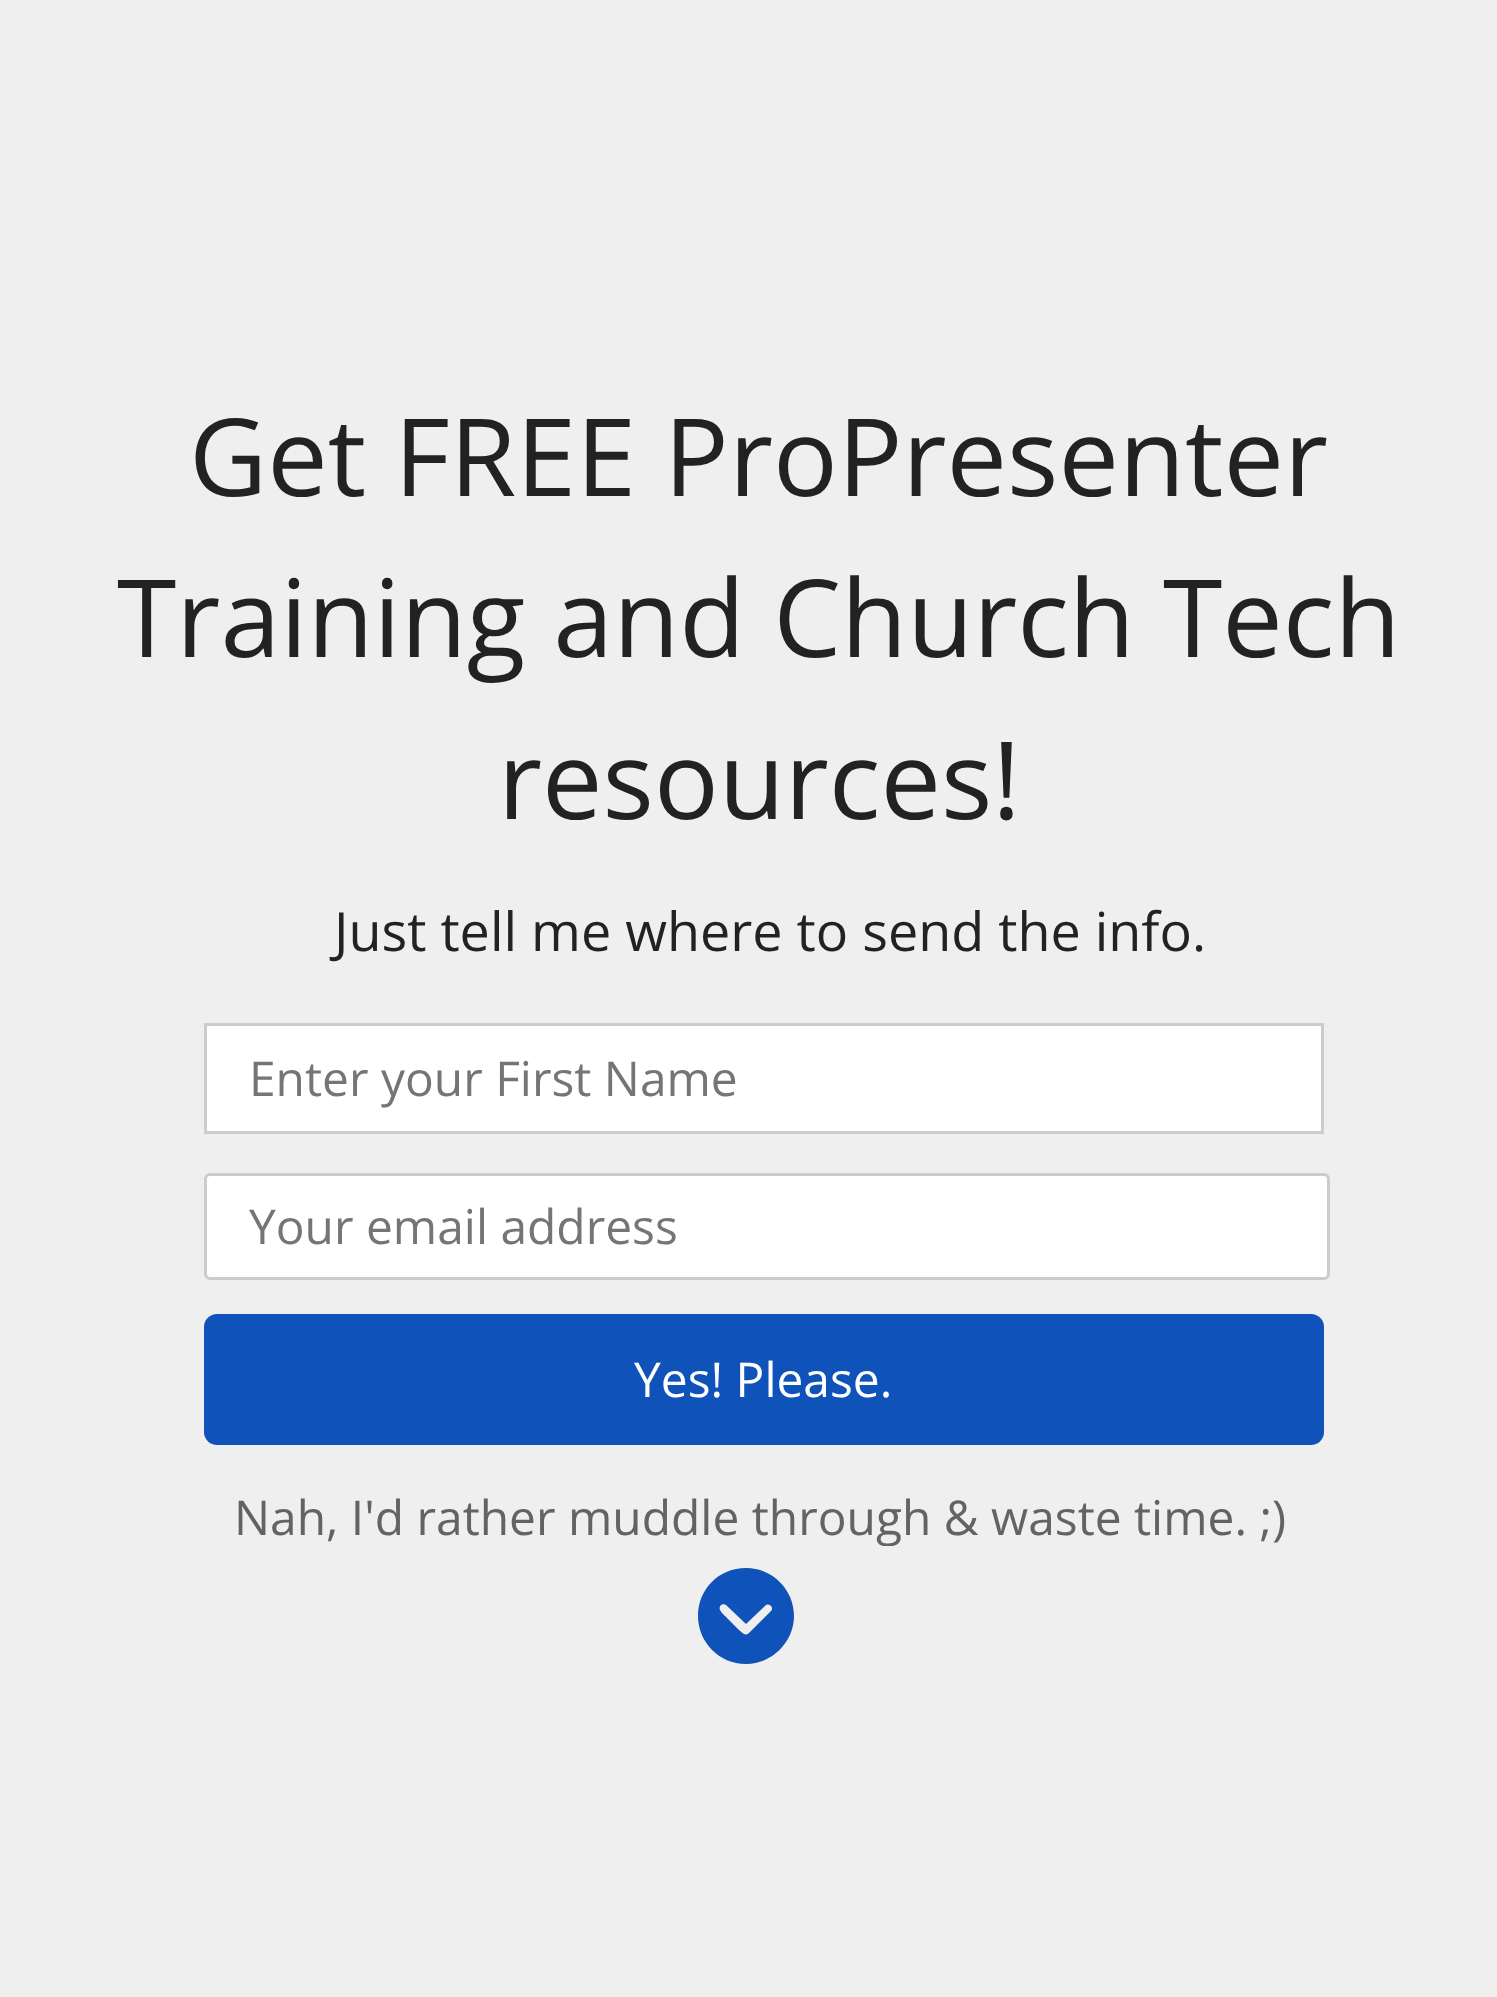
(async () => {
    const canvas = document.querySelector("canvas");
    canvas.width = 1497;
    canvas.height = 1997;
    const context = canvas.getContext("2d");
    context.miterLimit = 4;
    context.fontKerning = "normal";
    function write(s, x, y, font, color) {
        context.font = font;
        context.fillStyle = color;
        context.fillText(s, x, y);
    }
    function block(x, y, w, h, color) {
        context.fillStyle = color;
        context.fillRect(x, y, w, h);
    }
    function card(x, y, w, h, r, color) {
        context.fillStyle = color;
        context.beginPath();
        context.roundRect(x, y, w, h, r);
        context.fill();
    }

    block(0, 0, 1497, 1997, "rgb(239, 239, 239)");
    write("Get FREE ProPresenter", 189, 496, "107.75px Open Sans", "rgb(34, 34, 34)");
    write("Training and Church Tech", 117, 657, "107.75px Open Sans", "rgb(34, 34, 34)");
    write("resources!", 498, 819, "107.75px Open Sans", "rgb(34, 34, 34)");
    write("Just tell me where to send the info.", 334, 951, "53.9px Open Sans", "rgb(34, 34, 34)");
    context.fillStyle = "rgb(255, 255, 255)";
    context.beginPath();
    context.rect(205.5, 1024.5, 1117, 108);
    context.fill();
    context.strokeStyle = "rgb(204, 204, 204)";
    context.lineWidth = 3;
    context.stroke();
    write("Enter your First Name", 249, 1096, "47.9px Open Sans", "rgb(117, 117, 117)");
    context.fillStyle = "rgb(255, 255, 255)";
    context.beginPath();
    context.roundRect(205.5, 1174.5, 1123, 104, 4.5);
    context.fill();
    context.stroke();
    write("Your email address", 249, 1244, "47.9px Open Sans", "rgb(117, 117, 117)");
    card(204, 1314, 1120, 131, 13, "rgb(15, 82, 186)");
    write("Yes! Please.", 634, 1397, "47.9px Open Sans", "rgb(255, 255, 255)");
    context.save();
    context.beginPath();
    context.roundRect(204, 1481, 1114, 65, 13);
    context.clip();
    write("Nah, I'd rather muddle through & waste time. ;)", 234, 1535, "47.9px Open Sans", "rgb(101, 98, 98)");
    context.restore();
    context.fillStyle = "rgb(15, 82, 186)";
    context.beginPath();
    context.moveTo(746, 1568);
    context.bezierCurveTo(719, 1568, 698, 1589, 698, 1616);
    context.bezierCurveTo(698, 1642, 719, 1664, 746, 1664);
    context.bezierCurveTo(772, 1664, 794, 1642, 794, 1616);
    context.bezierCurveTo(794, 1589, 772, 1568, 746, 1568);
    context.closePath();
    context.moveTo(771, 1611);
    context.lineTo(752, 1630);
    context.bezierCurveTo(746, 1636, 746, 1636, 739, 1630);
    context.lineTo(728, 1619);
    context.bezierCurveTo(726, 1616, 716, 1610, 721, 1605);
    context.bezierCurveTo(722, 1604, 725, 1604, 726, 1605);
    context.lineTo(746, 1624);
    context.lineTo(766, 1605);
    context.bezierCurveTo(770, 1603, 774, 1608, 771, 1611);
    context.closePath();
    context.fill();
})();
